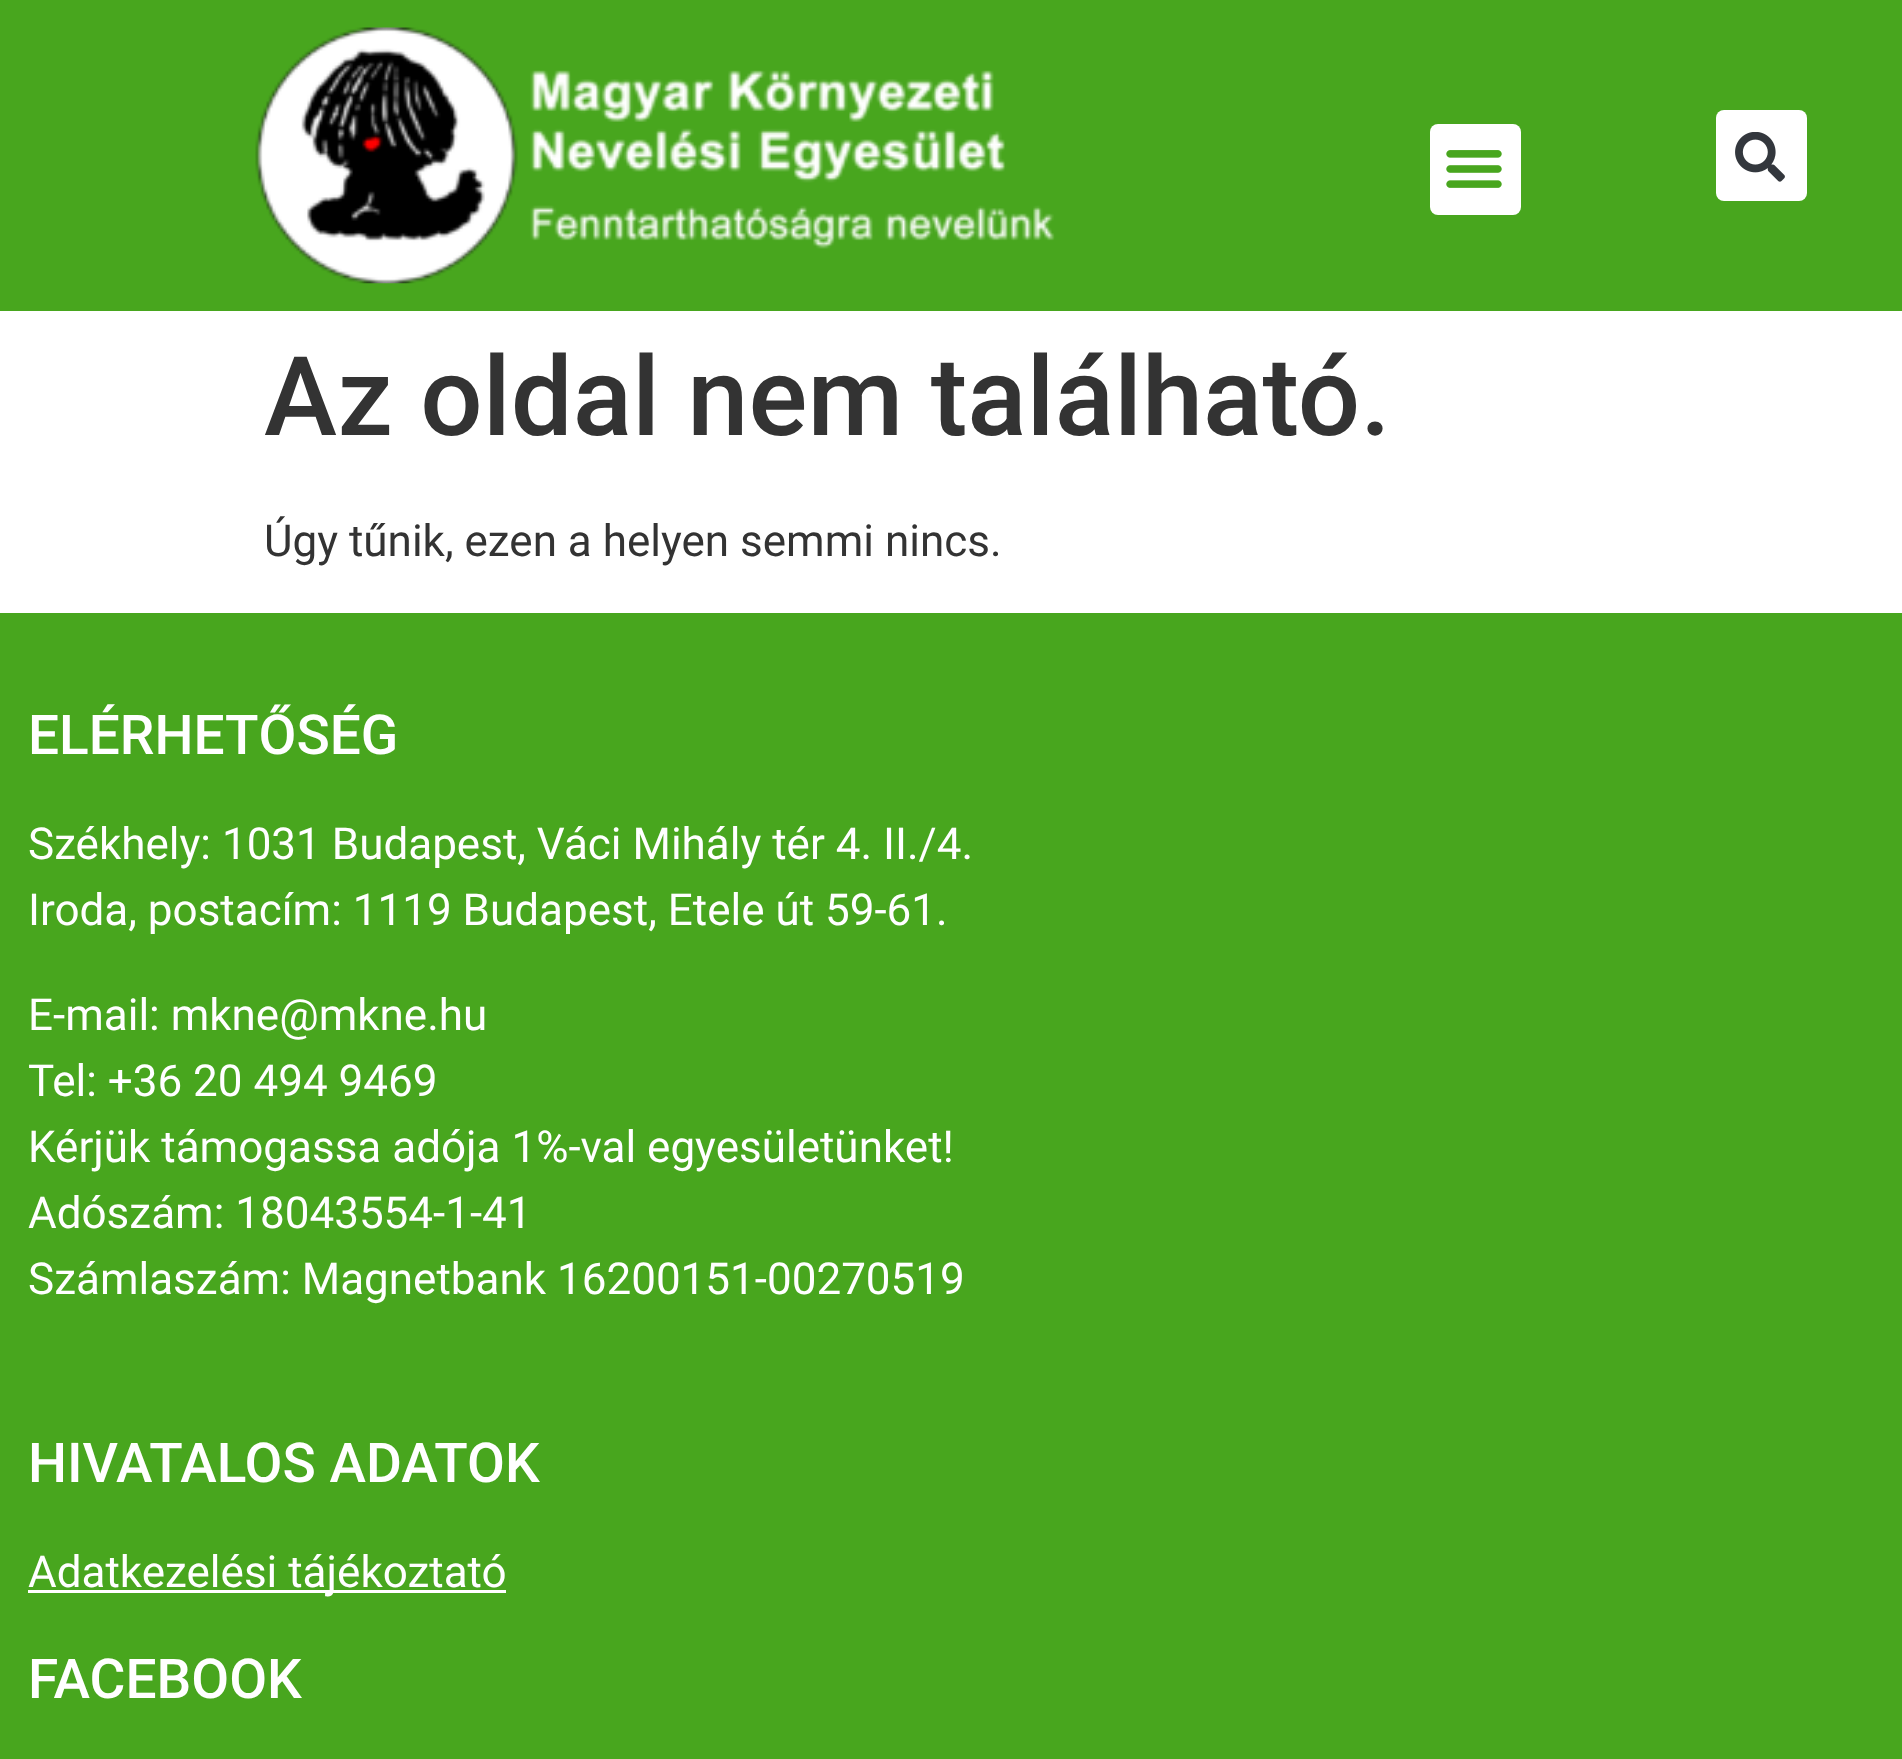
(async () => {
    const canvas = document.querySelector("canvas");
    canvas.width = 1902;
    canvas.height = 1759;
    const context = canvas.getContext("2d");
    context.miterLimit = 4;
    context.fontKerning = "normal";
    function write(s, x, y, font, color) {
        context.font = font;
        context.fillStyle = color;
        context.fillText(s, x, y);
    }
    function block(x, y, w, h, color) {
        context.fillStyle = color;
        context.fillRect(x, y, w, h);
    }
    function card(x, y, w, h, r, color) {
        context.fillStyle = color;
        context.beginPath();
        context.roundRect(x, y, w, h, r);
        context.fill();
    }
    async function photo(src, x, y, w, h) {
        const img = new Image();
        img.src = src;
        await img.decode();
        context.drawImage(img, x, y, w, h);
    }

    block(0, 0, 1902, 1759, "rgb(255, 255, 255)");
    block(0, 0, 1902, 311, "rgb(72, 166, 30)");
    await photo("media/1.png", 255, 27, 800, 257);
    card(1430, 124, 91, 91, 8, "rgb(255, 255, 255)");
    await photo("media/2.png", 1446, 150, 56, 38);
    card(1716, 110, 91, 91, 8, "rgb(255, 255, 255)");
    await photo("media/3.png", 1735, 132, 50, 50);
    write("Az oldal nem található.", 264, 435, "500 110px Roboto", "rgb(51, 51, 51)");
    write("Úgy tűnik, ezen a helyen semmi nincs.", 264, 556, "44px Roboto", "rgb(51, 51, 51)");
    block(0, 613, 1902, 1146, "rgb(72, 166, 30)");
    write("ELÉRHETŐSÉG", 28, 754, "500 55px Roboto", "rgb(255, 255, 255)");
    write("Székhely: 1031 Budapest, Váci Mihály tér 4. II./4.", 28, 859, "44px Roboto", "rgb(255, 255, 255)");
    write("Iroda, postacím: 1119 Budapest, Etele út 59-61.", 28, 925, "44px Roboto", "rgb(255, 255, 255)");
    write("E-mail: mkne@mkne.hu", 28, 1030, "44px Roboto", "rgb(255, 255, 255)");
    write("Tel: +36 20 494 9469", 28, 1096, "44px Roboto", "rgb(255, 255, 255)");
    write("Kérjük támogassa adója 1%-val egyesületünket!", 28, 1162, "44px Roboto", "rgb(255, 255, 255)");
    write("Adószám: 18043554-1-41", 28, 1228, "44px Roboto", "rgb(255, 255, 255)");
    write("Számlaszám: Magnetbank 16200151-00270519", 28, 1294, "44px Roboto", "rgb(255, 255, 255)");
    write("HIVATALOS ADATOK", 28, 1482, "500 55px Roboto", "rgb(255, 255, 255)");
    block(28, 1590, 478, 3, "rgb(255, 255, 255)");
    write("Adatkezelési tájékoztató", 28, 1587, "44px Roboto", "rgb(255, 255, 255)");
    write("FACEBOOK", 28, 1698, "500 55px Roboto", "rgb(255, 255, 255)");
})();
